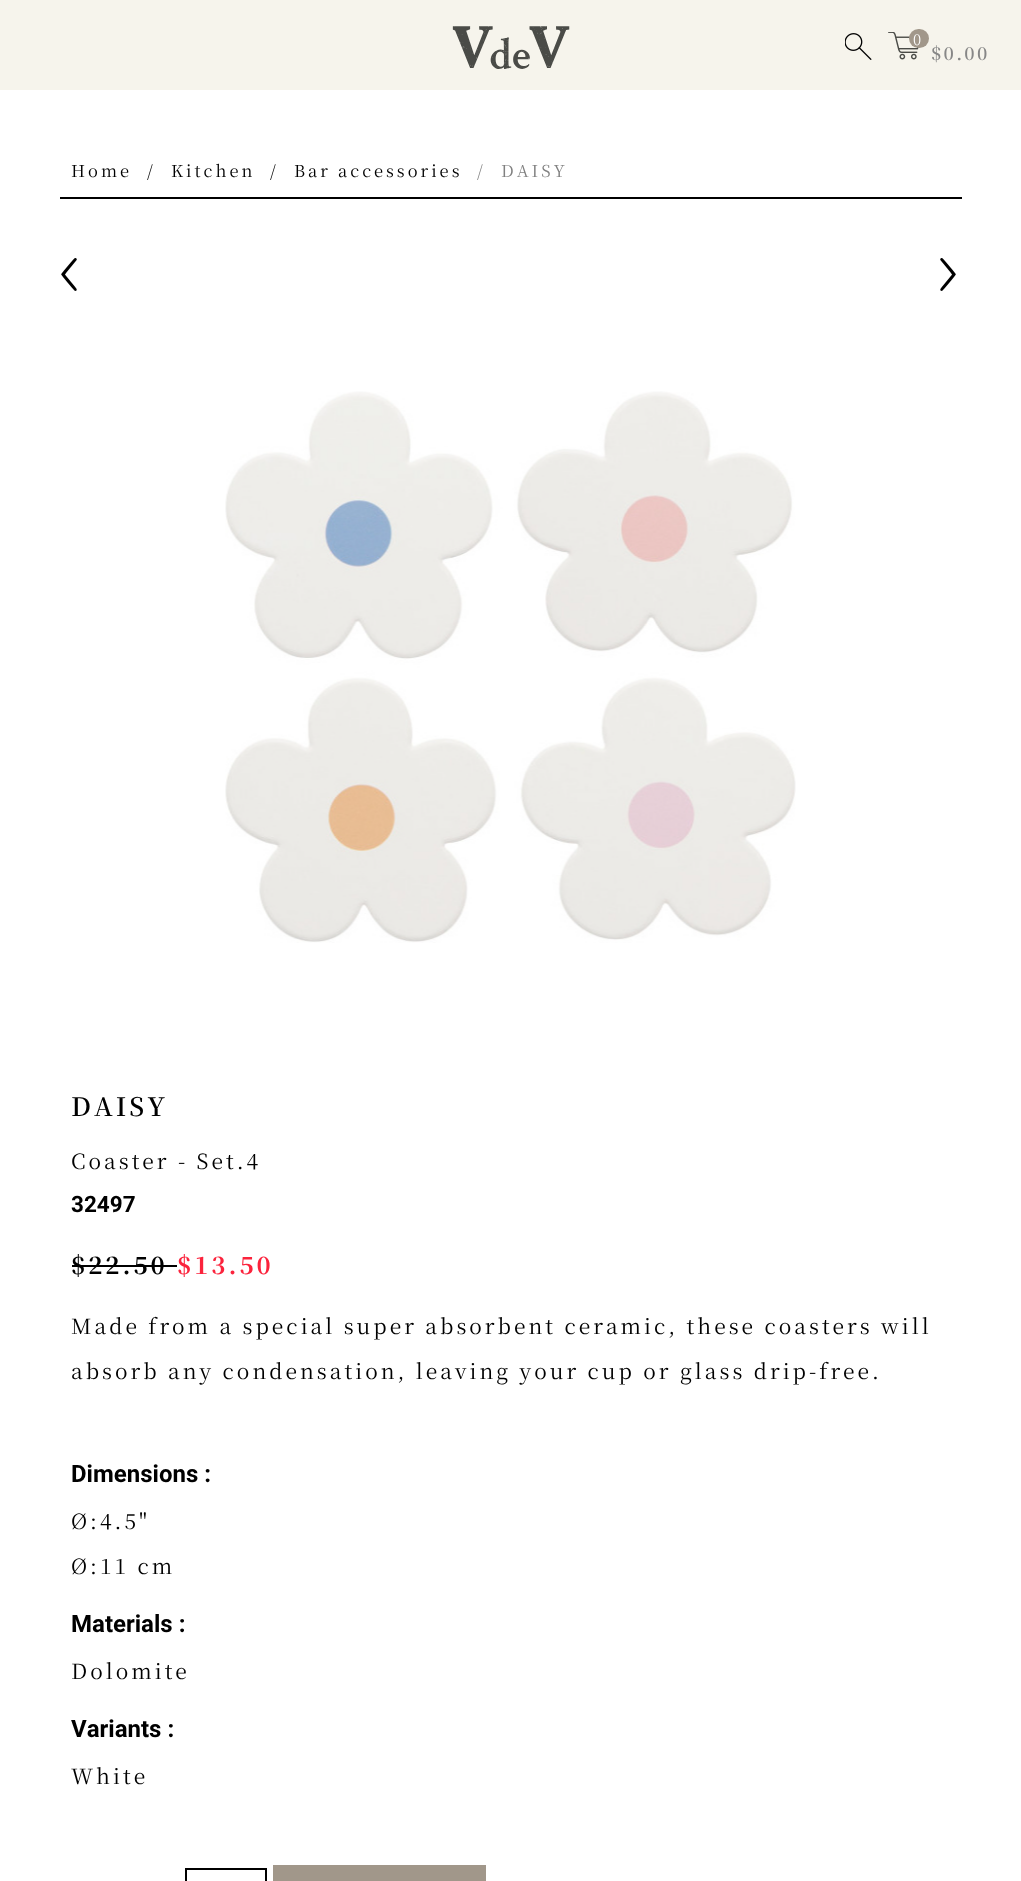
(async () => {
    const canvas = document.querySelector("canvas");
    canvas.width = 1021;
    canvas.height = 1881;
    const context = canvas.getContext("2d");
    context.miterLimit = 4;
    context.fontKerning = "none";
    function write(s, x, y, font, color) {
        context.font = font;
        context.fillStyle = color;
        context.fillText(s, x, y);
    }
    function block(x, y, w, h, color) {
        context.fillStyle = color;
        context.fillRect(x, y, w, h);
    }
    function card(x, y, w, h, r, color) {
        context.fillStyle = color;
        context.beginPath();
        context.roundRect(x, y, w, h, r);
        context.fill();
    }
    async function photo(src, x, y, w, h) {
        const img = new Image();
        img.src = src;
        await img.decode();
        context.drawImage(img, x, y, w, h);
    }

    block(0, 0, 1021, 1881, "rgb(255, 255, 255)");
    block(0, 0, 1021, 90, "rgb(246, 244, 236)");
    await photo("media/1.png", 452, 26, 118, 43);
    await photo("media/2.png", 845, 33, 27, 27);
    await photo("media/3.png", 888, 32, 31, 28);
    card(909, 29, 20, 19, 9.5, "rgb(161, 151, 138)");
    context.letterSpacing = "2.25px";
    write("0", 913, 45, "300 15px Noto Serif JP", "rgb(255, 255, 255)");
    write("$0.00", 931, 60, "600 18px Noto Serif JP", "rgb(135, 135, 135)");
    block(60, 197, 902, 2, "rgb(0, 0, 0)");
    context.letterSpacing = "3px";
    write("Home", 71, 177, "16.5px Noto Serif JP", "rgb(0, 0, 0)");
    write("/", 147, 177, "16.5px Noto Serif JP", "rgb(0, 0, 0)");
    write("Kitchen", 171, 177, "16.5px Noto Serif JP", "rgb(0, 0, 0)");
    write("/", 270, 177, "16.5px Noto Serif JP", "rgb(0, 0, 0)");
    write("Bar accessories", 294, 177, "16.5px Noto Serif JP", "rgb(0, 0, 0)");
    write("/", 477, 177, "16.5px Noto Serif JP", "rgb(128, 128, 128)");
    write("DAISY", 501, 177, "16.5px Noto Serif JP", "rgb(128, 128, 128)");
    await photo("media/4.png", 61, 258, 16, 33);
    await photo("media/5.png", 940, 258, 16, 33);
    await photo("media/6.png", 225, 391, 571, 552);
    write("DAISY", 71, 1116, "600 25.5px Noto Serif JP", "rgb(0, 0, 0)");
    write("Coaster - Set.4", 71, 1169, "21px Noto Serif JP", "rgb(0, 0, 0)");
    context.letterSpacing = "0px";
    write("32497", 71, 1212, "bold 22.5px Roboto", "rgb(0, 0, 0)");
    context.letterSpacing = "3px";
    write("$22.50", 71, 1274, "bold 24px Noto Serif JP", "rgb(0, 0, 0)");
    block(72, 1265, 105, 2, "rgb(0, 0, 0)");
    write("$13.50", 177, 1274, "bold 24px Noto Serif JP", "rgb(251, 35, 60)");
    write("Made from a special super absorbent ceramic, these coasters will", 71, 1334, "21px Noto Serif JP", "rgb(0, 0, 0)");
    write("absorb any condensation, leaving your cup or glass drip-free.", 71, 1379, "21px Noto Serif JP", "rgb(0, 0, 0)");
    context.letterSpacing = "0px";
    write("Dimensions :", 71, 1482, "bold 24px Roboto", "rgb(0, 0, 0)");
    context.letterSpacing = "3px";
    write("Ø:4.5\"", 71, 1529, "21px Noto Serif JP", "rgb(0, 0, 0)");
    write("Ø:11 cm", 71, 1574, "21px Noto Serif JP", "rgb(0, 0, 0)");
    context.letterSpacing = "0px";
    write("Materials :", 71, 1632, "bold 24px Roboto", "rgb(0, 0, 0)");
    context.letterSpacing = "3px";
    write("Dolomite", 71, 1679, "21px Noto Serif JP", "rgb(0, 0, 0)");
    context.letterSpacing = "0px";
    write("Variants :", 71, 1737, "bold 24px Roboto", "rgb(0, 0, 0)");
    context.letterSpacing = "3px";
    write("White", 71, 1784, "21px Noto Serif JP", "rgb(0, 0, 0)");
    context.strokeStyle = "rgb(0, 0, 0)";
    context.lineWidth = 2;
    context.strokeRect(186, 1869, 80, 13);
    block(273, 1865, 213, 16, "rgb(161, 151, 138)");
})();
